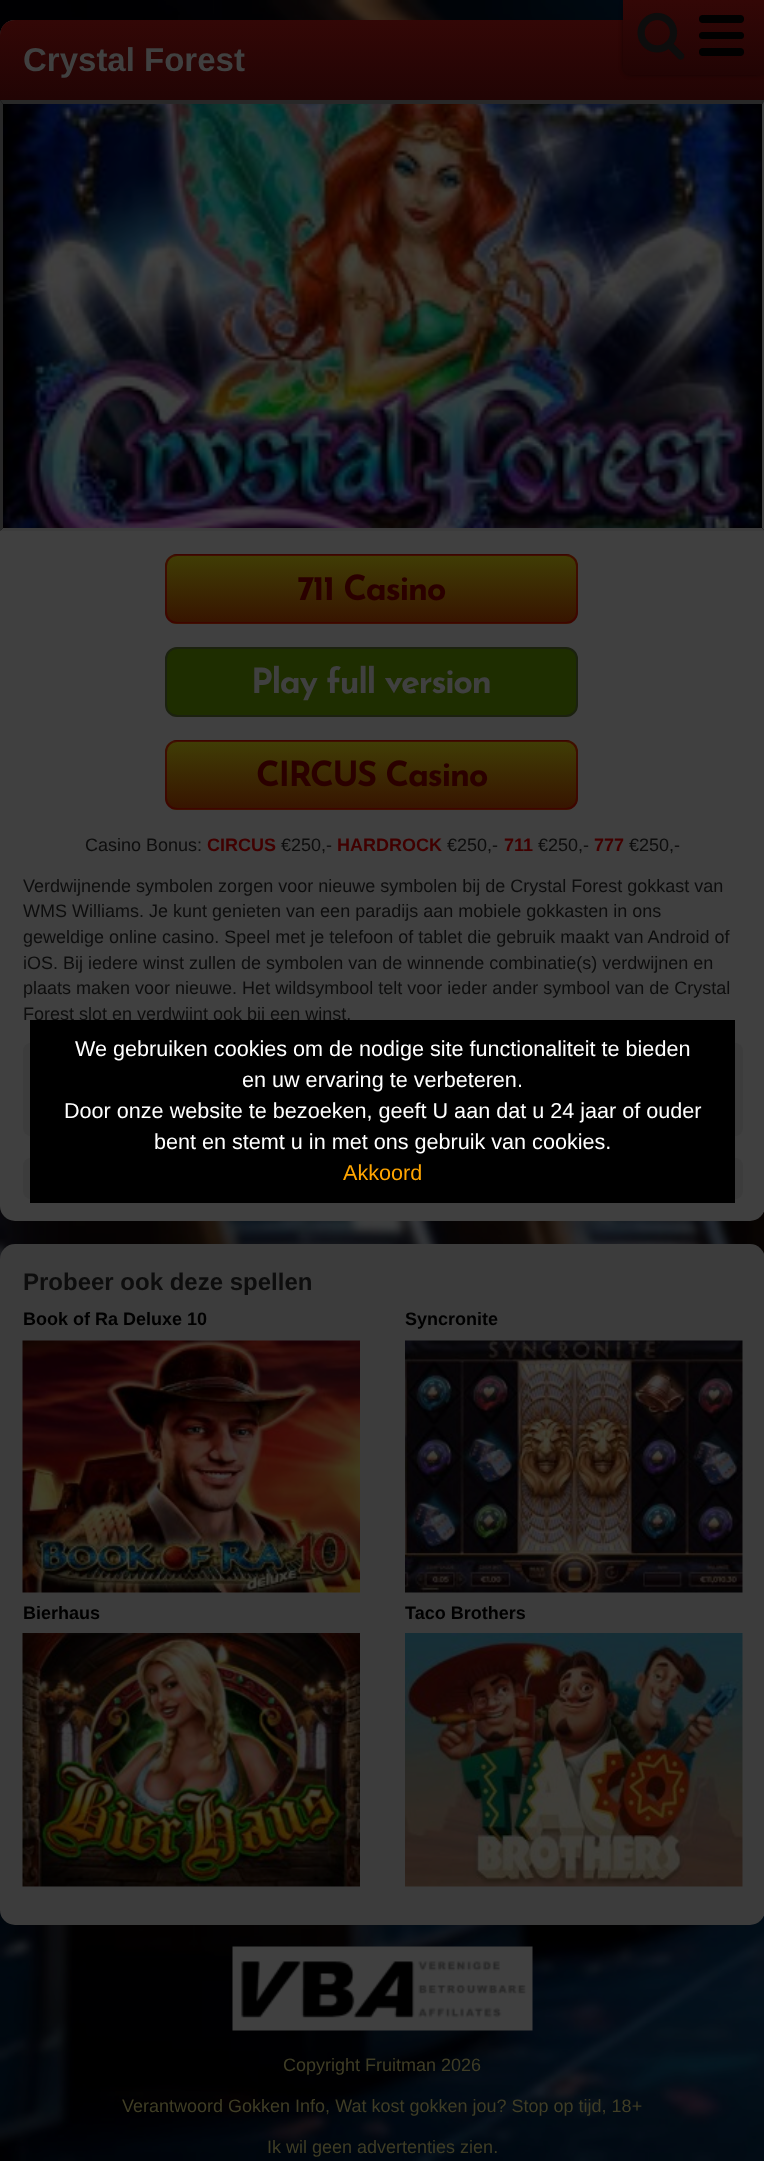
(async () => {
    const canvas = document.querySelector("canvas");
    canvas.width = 764;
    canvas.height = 2161;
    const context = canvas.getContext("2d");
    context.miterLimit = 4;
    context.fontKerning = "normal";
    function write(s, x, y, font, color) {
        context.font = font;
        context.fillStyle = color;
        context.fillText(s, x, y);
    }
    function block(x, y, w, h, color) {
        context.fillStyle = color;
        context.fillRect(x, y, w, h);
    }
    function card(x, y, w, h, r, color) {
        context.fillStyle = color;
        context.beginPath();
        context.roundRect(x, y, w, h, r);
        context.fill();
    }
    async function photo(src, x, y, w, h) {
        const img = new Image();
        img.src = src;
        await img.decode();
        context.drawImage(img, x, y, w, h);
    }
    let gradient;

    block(0, 0, 764, 2161, "rgb(255, 255, 255)");
    await photo("media/1.png", 0, 0, 764, 2161);
    card(0, 20, 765, 1201, 15, "rgb(64, 64, 64)");
    gradient = context.createLinearGradient(383, 19, 383, 101);
    gradient.addColorStop(0, "rgb(51, 7, 6)");
    gradient.addColorStop(1, "rgb(33, 4, 4)");
    context.fillStyle = gradient;
    context.beginPath();
    context.moveTo(15, 20);
    context.lineTo(750, 20);
    context.bezierCurveTo(758.5, 20, 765, 26.5, 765, 35);
    context.lineTo(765, 101);
    context.lineTo(0, 101);
    context.lineTo(0, 35);
    context.bezierCurveTo(0, 26.5, 6.5, 20, 15, 20);
    context.closePath();
    context.fill();
    context.fillStyle = "rgba(0, 0, 0, 0.5)";
    context.filter = "blur(2px)";
    context.beginPath();
    context.roundRect(623, 0, 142, 75, 8);
    context.fill();
    context.filter = "none";
    gradient = context.createLinearGradient(694, 0, 694, 75);
    gradient.addColorStop(0, "rgb(51, 7, 6)");
    gradient.addColorStop(1, "rgb(33, 4, 4)");
    context.fillStyle = gradient;
    context.beginPath();
    context.moveTo(623, 0);
    context.lineTo(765, 0);
    context.lineTo(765, 75);
    context.lineTo(631, 75);
    context.bezierCurveTo(626.5, 75, 623, 71.5, 623, 67);
    context.closePath();
    context.fill();
    await photo("media/2.png", 637, 12, 48, 48);
    card(699, 15, 45, 8, 4, "rgb(1, 1, 1)");
    card(699, 32, 45, 7, 3.5, "rgb(1, 1, 1)");
    card(699, 48, 45, 8, 4, "rgb(1, 1, 1)");
    write("Crystal Forest", 23, 71, "bold 33px Liberation Sans", "rgb(64, 64, 64)");
    await photo("media/3.png", 0, 100, 764, 431);
    context.fillStyle = "rgb(40, 40, 40)";
    context.beginPath();
    context.moveTo(0, 100);
    context.lineTo(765, 100);
    context.lineTo(762, 104);
    context.lineTo(3, 104);
    context.closePath();
    context.fill();
    context.fillStyle = "rgb(60, 60, 60)";
    context.beginPath();
    context.moveTo(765, 100);
    context.lineTo(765, 531);
    context.lineTo(762, 528);
    context.lineTo(762, 104);
    context.closePath();
    context.fill();
    context.beginPath();
    context.moveTo(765, 531);
    context.lineTo(0, 531);
    context.lineTo(3, 528);
    context.lineTo(762, 528);
    context.closePath();
    context.fill();
    context.fillStyle = "rgb(40, 40, 40)";
    context.beginPath();
    context.moveTo(0, 531);
    context.lineTo(0, 100);
    context.lineTo(3, 104);
    context.lineTo(3, 528);
    context.closePath();
    context.fill();
    context.save();
    context.beginPath();
    context.roundRect(165, 554, 413, 70, 12);
    context.clip();
    gradient = context.createLinearGradient(371, 488, 371, 555);
    gradient.addColorStop(0, "rgb(64, 61, 5)");
    gradient.addColorStop(1, "rgb(55, 20, 0)");
    context.fillStyle = gradient;
    context.fillRect(165, 554, 413, 1);
    gradient = context.createLinearGradient(371, 555, 371, 623);
    gradient.addColorStop(0, "rgb(64, 61, 5)");
    gradient.addColorStop(1, "rgb(55, 20, 0)");
    context.fillStyle = gradient;
    context.fillRect(165, 555, 413, 68);
    gradient = context.createLinearGradient(371, 623, 371, 690);
    gradient.addColorStop(0, "rgb(64, 61, 5)");
    gradient.addColorStop(1, "rgb(55, 20, 0)");
    context.fillStyle = gradient;
    context.fillRect(165, 623, 413, 1);
    context.restore();
    context.beginPath();
    context.roundRect(166, 555, 411, 68, 11);
    context.strokeStyle = "rgba(64, 0, 0, 0.75)";
    context.lineWidth = 2;
    context.stroke();
    context.letterSpacing = "-1.5px";
    write("711 Casino", 297, 600, "100 34.5px Josefin Sans", "rgb(42, 0, 0)");
    context.fillStyle = "rgb(30, 45, 0)";
    context.beginPath();
    context.roundRect(166, 648, 411, 68, 11);
    context.fill();
    context.strokeStyle = "rgb(27, 33, 15)";
    context.stroke();
    write("Play full version", 251, 693, "100 34.5px Josefin Sans", "rgb(64, 64, 64)");
    context.save();
    context.beginPath();
    context.roundRect(165, 740, 413, 70, 12);
    context.clip();
    gradient = context.createLinearGradient(371, 674, 371, 741);
    gradient.addColorStop(0, "rgb(64, 61, 5)");
    gradient.addColorStop(1, "rgb(55, 20, 0)");
    context.fillStyle = gradient;
    context.fillRect(165, 740, 413, 1);
    gradient = context.createLinearGradient(371, 741, 371, 809);
    gradient.addColorStop(0, "rgb(64, 61, 5)");
    gradient.addColorStop(1, "rgb(55, 20, 0)");
    context.fillStyle = gradient;
    context.fillRect(165, 741, 413, 68);
    gradient = context.createLinearGradient(371, 809, 371, 876);
    gradient.addColorStop(0, "rgb(64, 61, 5)");
    gradient.addColorStop(1, "rgb(55, 20, 0)");
    context.fillStyle = gradient;
    context.fillRect(165, 809, 413, 1);
    context.restore();
    context.beginPath();
    context.roundRect(166, 741, 411, 68, 11);
    context.strokeStyle = "rgba(64, 0, 0, 0.75)";
    context.stroke();
    write("CIRCUS Casino", 256, 786, "100 34.5px Josefin Sans", "rgb(42, 0, 0)");
    context.letterSpacing = "0px";
    write("Casino Bonus:", 85, 851, "18px Liberation Sans", "rgb(13, 13, 13)");
    write("CIRCUS", 207, 851, "bold 18px Liberation Sans", "rgb(64, 0, 0)");
    write("€250,-", 281, 851, "18px Liberation Sans", "rgb(13, 13, 13)");
    write("HARDROCK", 337, 851, "bold 18px Liberation Sans", "rgb(64, 0, 0)");
    write("€250,-", 447, 851, "18px Liberation Sans", "rgb(13, 13, 13)");
    write("711", 504, 851, "bold 18px Liberation Sans", "rgb(64, 0, 0)");
    write("€250,-", 538, 851, "18px Liberation Sans", "rgb(13, 13, 13)");
    write("777", 594, 851, "bold 18px Liberation Sans", "rgb(64, 0, 0)");
    write("€250,-", 629, 851, "18px Liberation Sans", "rgb(13, 13, 13)");
    write("Verdwijnende symbolen zorgen voor nieuwe symbolen bij de Crystal Forest gokkast van", 23, 892, "18px Liberation Sans", "rgb(13, 13, 13)");
    write("WMS Williams. Je kunt genieten van een paradijs aan mobiele gokkasten in ons", 23, 917, "18px Liberation Sans", "rgb(13, 13, 13)");
    write("geweldige online casino. Speel met je telefoon of tablet die gebruik maakt van Android of", 23, 943, "18px Liberation Sans", "rgb(13, 13, 13)");
    write("iOS. Bij iedere winst zullen de symbolen van de winnende combinatie(s) verdwijnen en", 23, 969, "18px Liberation Sans", "rgb(13, 13, 13)");
    write("plaats maken voor nieuwe. Het wildsymbool telt voor ieder ander symbool van de Crystal", 23, 994, "18px Liberation Sans", "rgb(13, 13, 13)");
    write("Forest slot en verdwijnt ook bij een winst.", 23, 1020, "18px Liberation Sans", "rgb(13, 13, 13)");
    card(23, 1043, 720, 93, 8, "rgb(60, 60, 60)");
    card(23, 1158, 720, 41, 8, "rgb(60, 60, 60)");
    card(0, 1244, 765, 681, 15, "rgb(60, 60, 60)");
    write("Probeer ook deze spellen", 23, 1290, "bold 24px Liberation Sans", "rgb(13, 13, 13)");
    write("Book of Ra Deluxe 10", 23, 1325, "bold 18px Liberation Sans", "rgb(0, 0, 0)");
    await photo("media/4.png", 22, 1340, 338, 253);
    write("Syncronite", 405, 1325, "bold 18px Liberation Sans", "rgb(0, 0, 0)");
    await photo("media/5.png", 405, 1340, 338, 253);
    write("Bierhaus", 23, 1619, "bold 18px Liberation Sans", "rgb(0, 0, 0)");
    await photo("media/6.png", 22, 1633, 338, 254);
    write("Taco Brothers", 405, 1619, "bold 18px Liberation Sans", "rgb(0, 0, 0)");
    await photo("media/7.png", 405, 1633, 338, 254);
    block(30, 1020, 705, 183, "rgb(0, 0, 0)");
    write("We gebruiken cookies om de nodige site functionaliteit te bieden", 75, 1056, "21.6px Liberation Sans", "rgb(255, 255, 255)");
    write("en uw ervaring te verbeteren.", 242, 1087, "21.6px Liberation Sans", "rgb(255, 255, 255)");
    write("Door onze website te bezoeken, geeft U aan dat u 24 jaar of ouder", 64, 1118, "21.6px Liberation Sans", "rgb(255, 255, 255)");
    write("bent en stemt u in met ons gebruik van cookies.", 154, 1149, "21.6px Liberation Sans", "rgb(255, 255, 255)");
    write("Akkoord", 343, 1180, "21.6px Liberation Sans", "rgb(255, 165, 0)");
    await photo("media/8.png", 232, 1946, 301, 85);
    write("Copyright Fruitman 2026", 283, 2071, "18px Liberation Sans", "rgb(63, 61, 37)");
    write("Verantwoord Gokken Info, Wat kost gokken jou? Stop op tijd, 18+", 122, 2112, "18px Liberation Sans", "rgb(63, 61, 37)");
    write("Ik wil geen advertenties zien.", 267, 2153, "18px Liberation Sans", "rgb(63, 61, 37)");
})();
